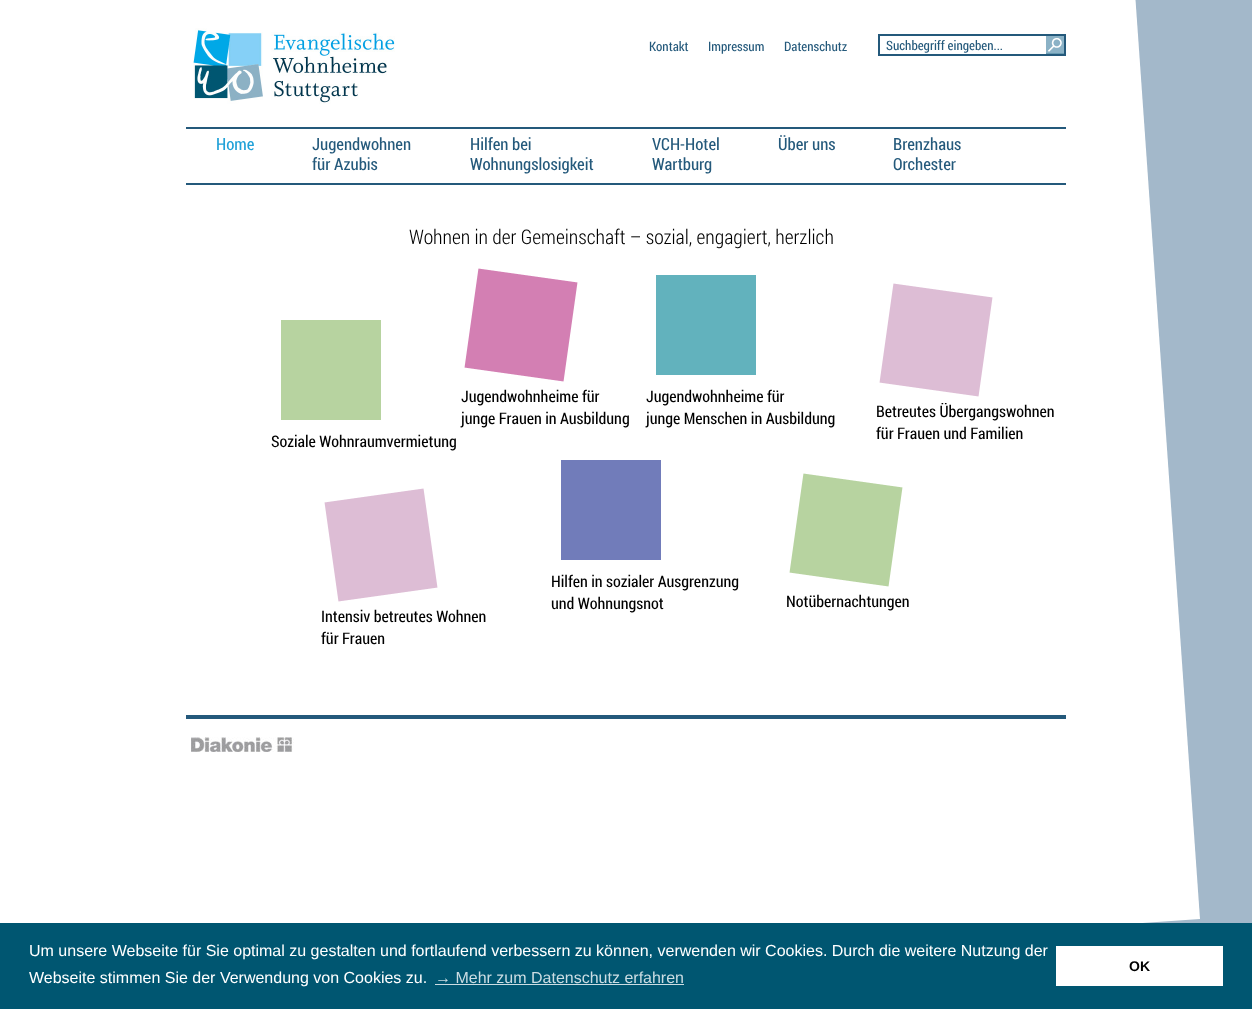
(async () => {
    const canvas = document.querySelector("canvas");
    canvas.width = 1252;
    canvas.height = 1009;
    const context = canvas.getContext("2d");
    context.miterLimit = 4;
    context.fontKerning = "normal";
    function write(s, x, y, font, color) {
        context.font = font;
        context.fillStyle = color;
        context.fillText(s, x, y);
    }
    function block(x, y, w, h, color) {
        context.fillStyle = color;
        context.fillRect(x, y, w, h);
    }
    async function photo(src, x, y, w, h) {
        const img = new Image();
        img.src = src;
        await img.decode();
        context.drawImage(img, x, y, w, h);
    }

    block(0, 0, 1252, 1009, "rgb(163, 184, 202)");
    context.fillStyle = "rgb(255, 255, 255)";
    context.beginPath();
    context.moveTo(-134, -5);
    context.lineTo(1129, -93);
    context.lineTo(1200, 919);
    context.lineTo(-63, 1007);
    context.closePath();
    context.fill();
    await photo("media/1.png", 193, 28, 202, 76);
    write("Kontakt", 649, 51, "13px Roboto Condensed", "rgb(36, 89, 123)");
    write("Impressum", 708, 51, "13px Roboto Condensed", "rgb(36, 89, 123)");
    write("Datenschutz", 784, 51, "13px Roboto Condensed", "rgb(36, 89, 123)");
    block(878, 34, 188, 2, "rgb(36, 89, 123)");
    block(1064, 34, 2, 22, "rgb(36, 89, 123)");
    block(878, 54, 188, 2, "rgb(36, 89, 123)");
    await photo("media/2.png", 1046, 36, 18, 18);
    block(878, 34, 2, 22, "rgb(36, 89, 123)");
    write("Suchbegriff eingeben...", 886, 50, "13px Roboto Condensed", "rgb(36, 89, 123)");
    block(186, 127, 880, 2, "rgb(36, 89, 123)");
    block(186, 183, 880, 2, "rgb(36, 89, 123)");
    write("Home", 216, 150, "16.75px Roboto Condensed", "rgb(32, 161, 216)");
    write("Jugendwohnen", 312, 150, "16.75px Roboto Condensed", "rgb(36, 89, 123)");
    write("für Azubis", 312, 170, "16.75px Roboto Condensed", "rgb(36, 89, 123)");
    write("Hilfen bei", 470, 150, "16.75px Roboto Condensed", "rgb(36, 89, 123)");
    write("Wohnungslosigkeit", 470, 170, "16.75px Roboto Condensed", "rgb(36, 89, 123)");
    write("VCH-Hotel", 652, 150, "16.75px Roboto Condensed", "rgb(36, 89, 123)");
    write("Wartburg", 652, 170, "16.75px Roboto Condensed", "rgb(36, 89, 123)");
    write("Über uns", 778, 150, "16.75px Roboto Condensed", "rgb(36, 89, 123)");
    write("Brenzhaus", 893, 150, "16.75px Roboto Condensed", "rgb(36, 89, 123)");
    write("Orchester", 893, 170, "16.75px Roboto Condensed", "rgb(36, 89, 123)");
    write("Wohnen in der Gemeinschaft – sozial, engagiert, herzlich", 409, 244, "300 20px Roboto Condensed", "rgb(0, 0, 0)");
    await photo("media/3.png", 464, 268, 114, 114);
    write("Jugendwohnheime für", 461, 402, "16px Roboto Condensed", "rgb(0, 0, 0)");
    write("junge Frauen in Ausbildung", 461, 424, "16px Roboto Condensed", "rgb(0, 0, 0)");
    block(656, 275, 100, 100, "rgb(98, 178, 189)");
    write("Jugendwohnheime für", 646, 402, "16px Roboto Condensed", "rgb(0, 0, 0)");
    write("junge Menschen in Ausbildung", 646, 424, "16px Roboto Condensed", "rgb(0, 0, 0)");
    await photo("media/4.png", 879, 283, 114, 114);
    write("Betreutes Übergangswohnen", 876, 417, "16px Roboto Condensed", "rgb(0, 0, 0)");
    write("für Frauen und Familien", 876, 439, "16px Roboto Condensed", "rgb(0, 0, 0)");
    block(281, 320, 100, 100, "rgb(183, 211, 160)");
    write("Soziale Wohnraumvermietung", 271, 447, "16px Roboto Condensed", "rgb(0, 0, 0)");
    block(561, 460, 100, 100, "rgb(113, 124, 186)");
    write("Hilfen in sozialer Ausgrenzung", 551, 587, "16px Roboto Condensed", "rgb(0, 0, 0)");
    write("und Wohnungsnot", 551, 609, "16px Roboto Condensed", "rgb(0, 0, 0)");
    await photo("media/5.png", 789, 473, 114, 114);
    write("Notübernachtungen", 786, 607, "16px Roboto Condensed", "rgb(0, 0, 0)");
    await photo("media/6.png", 324, 488, 114, 114);
    write("Intensiv betreutes Wohnen", 321, 622, "16px Roboto Condensed", "rgb(0, 0, 0)");
    write("für Frauen", 321, 644, "16px Roboto Condensed", "rgb(0, 0, 0)");
    block(186, 715, 880, 4, "rgb(36, 89, 123)");
    await photo("media/7.png", 191, 737, 103, 15);
    block(0, 923, 1252, 86, "rgb(0, 86, 113)");
    write("Um unsere Webseite für Sie optimal zu gestalten und fortlaufend verbessern zu können, verwenden wir Cookies. Durch die weitere Nutzung der", 29, 956, "16px Liberation Sans", "rgb(255, 255, 255)");
    write("Webseite stimmen Sie der Verwendung von Cookies zu.", 29, 983, "16px Liberation Sans", "rgb(255, 255, 255)");
    write("→ Mehr zum Datenschutz erfahren", 435, 983, "16px Liberation Sans", "rgb(204, 221, 227)");
    block(435, 984, 249, 1, "rgb(204, 221, 227)");
    block(1056, 946, 167, 40, "rgb(255, 255, 255)");
    write("OK", 1129, 971, "bold 14px Liberation Sans", "rgb(0, 0, 0)");
})();
